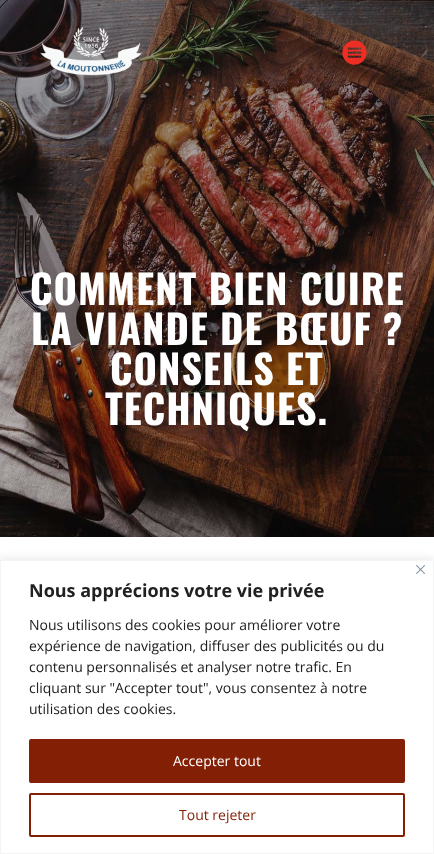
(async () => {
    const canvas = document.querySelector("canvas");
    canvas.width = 434;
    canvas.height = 854;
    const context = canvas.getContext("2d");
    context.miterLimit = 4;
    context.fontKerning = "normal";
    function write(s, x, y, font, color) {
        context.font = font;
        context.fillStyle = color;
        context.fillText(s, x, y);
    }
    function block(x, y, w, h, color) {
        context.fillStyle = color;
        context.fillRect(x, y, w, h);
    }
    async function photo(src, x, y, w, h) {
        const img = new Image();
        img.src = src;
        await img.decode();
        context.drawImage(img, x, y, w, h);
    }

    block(0, 0, 434, 854, "rgb(255, 255, 255)");
    await photo("media/3.png", 0, 0, 434, 537);
    await photo("media/1.png", 40, 27, 102, 49);
    await photo("media/2.png", 342, 40, 25, 25);
    context.letterSpacing = "1px";
    write("COMMENT BIEN CUIRE", 30, 305, "bold 40px Oswald", "rgb(255, 255, 255)");
    write("LA VIANDE DE BŒUF ?", 31, 345, "bold 40px Oswald", "rgb(255, 255, 255)");
    write("CONSEILS ET", 110, 385, "bold 40px Oswald", "rgb(255, 255, 255)");
    write("TECHNIQUES.", 105, 425, "bold 40px Oswald", "rgb(255, 255, 255)");
    context.fillStyle = "rgba(172, 171, 171, 0.3)";
    context.filter = "blur(5px)";
    context.beginPath();
    context.rect(0, 559, 434, 294);
    context.fill();
    context.filter = "none";
    context.fillStyle = "rgb(255, 255, 255)";
    context.beginPath();
    context.rect(0.5, 560.5, 433, 293);
    context.fill();
    context.strokeStyle = "rgb(244, 244, 244)";
    context.stroke();
    await photo("media/4.png", 416, 565, 9, 9);
    context.letterSpacing = "0px";
    write("Nous apprécions votre vie privée", 29, 597, "bold 18px Open Sans", "rgb(33, 33, 33)");
    write("Nous utilisons des cookies pour améliorer votre", 29, 630, "14px Open Sans", "rgb(33, 33, 33)");
    write("expérience de navigation, diffuser des publicités ou du", 29, 651, "14px Open Sans", "rgb(33, 33, 33)");
    write("contenu personnalisés et analyser notre trafic. En", 29, 672, "14px Open Sans", "rgb(33, 33, 33)");
    write("cliquant sur \"Accepter tout\", vous consentez à notre", 29, 693, "14px Open Sans", "rgb(33, 33, 33)");
    write("utilisation des cookies.", 29, 714, "14px Open Sans", "rgb(33, 33, 33)");
    context.fillStyle = "rgb(130, 31, 5)";
    context.beginPath();
    context.roundRect(30, 740, 374, 42, 1);
    context.fill();
    context.strokeStyle = "rgb(130, 31, 5)";
    context.lineWidth = 2;
    context.stroke();
    write("Accepter tout", 173, 766, "14px Open Sans", "rgb(255, 255, 255)");
    context.beginPath();
    context.roundRect(30, 794, 374, 42, 1);
    context.stroke();
    write("Tout rejeter", 179, 820, "14px Open Sans", "rgb(130, 31, 5)");
})();
